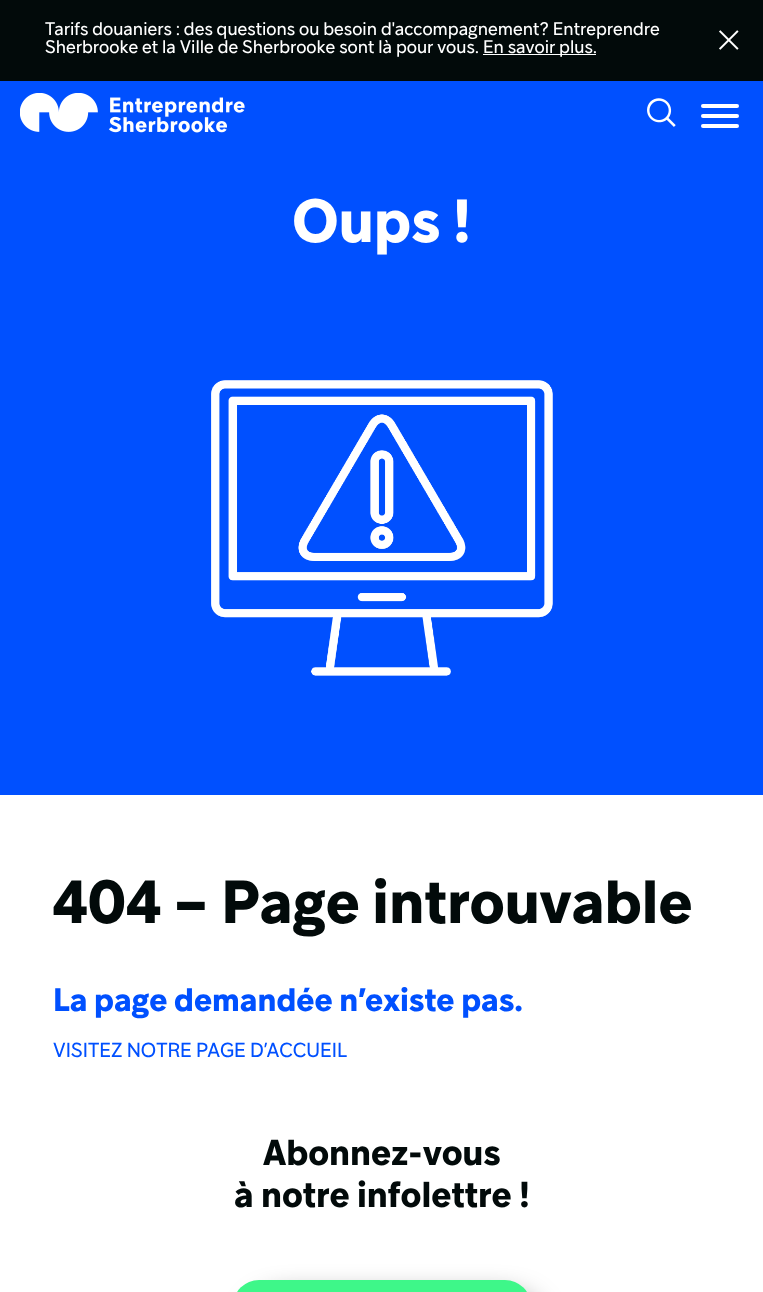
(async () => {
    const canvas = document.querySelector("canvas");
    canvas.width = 763;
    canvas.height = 1292;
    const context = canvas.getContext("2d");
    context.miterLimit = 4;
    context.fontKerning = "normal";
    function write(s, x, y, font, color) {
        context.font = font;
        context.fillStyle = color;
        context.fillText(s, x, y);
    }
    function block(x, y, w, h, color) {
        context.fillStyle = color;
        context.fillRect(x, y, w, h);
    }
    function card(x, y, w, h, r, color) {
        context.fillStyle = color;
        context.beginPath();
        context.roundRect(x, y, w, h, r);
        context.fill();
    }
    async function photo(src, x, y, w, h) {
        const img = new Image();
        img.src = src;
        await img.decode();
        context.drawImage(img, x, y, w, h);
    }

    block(0, 0, 763, 1292, "rgb(255, 255, 255)");
    block(0, 0, 763, 81, "rgb(2, 10, 10)");
    write("Tarifs douaniers : des questions ou besoin d'accompagnement? Entreprendre", 45, 35, "18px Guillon", "rgb(255, 255, 255)");
    write("Sherbrooke et la Ville de Sherbrooke sont là pour vous.", 45, 53, "18px Guillon", "rgb(255, 255, 255)");
    block(483, 54, 113, 1, "rgb(255, 255, 255)");
    write("En savoir plus.", 483, 53, "18px Guillon", "rgb(255, 255, 255)");
    await photo("media/1.png", 719, 30, 20, 20);
    block(0, 81, 763, 714, "rgb(0, 80, 255)");
    await photo("media/2.png", 20, 93, 225, 40);
    await photo("media/3.png", 647, 98, 29, 29);
    card(701, 104, 38, 4, 2, "rgb(255, 255, 255)");
    card(701, 114, 38, 4, 2, "rgb(255, 255, 255)");
    card(701, 124, 38, 4, 2, "rgb(255, 255, 255)");
    write("Oups !", 292, 242, "bold 60px Guillon", "rgb(255, 255, 255)");
    await photo("media/4.png", 211, 380, 342, 296);
    write("404 – Page introuvable", 53, 923, "bold 60px Guillon", "rgb(2, 10, 10)");
    write("La page demandée n’existe pas.", 53, 1011, "bold 32px Guillon", "rgb(0, 80, 255)");
    write("VISITEZ NOTRE PAGE D’ACCUEIL", 53, 1057, "20px Guillon", "rgb(0, 80, 255)");
    write("Abonnez-vous", 263, 1165, "bold 35.5px Guillon", "rgb(2, 10, 10)");
    write("à notre infolettre !", 234, 1207, "bold 35.5px Guillon", "rgb(2, 10, 10)");
    context.fillStyle = "rgba(0, 0, 0, 0.66)";
    context.filter = "blur(15px)";
    context.beginPath();
    context.roundRect(251, 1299, 287, 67, 33.5);
    context.fill();
    context.filter = "none";
    card(233, 1280, 298, 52, 40, "rgb(62, 247, 137)");
})();
